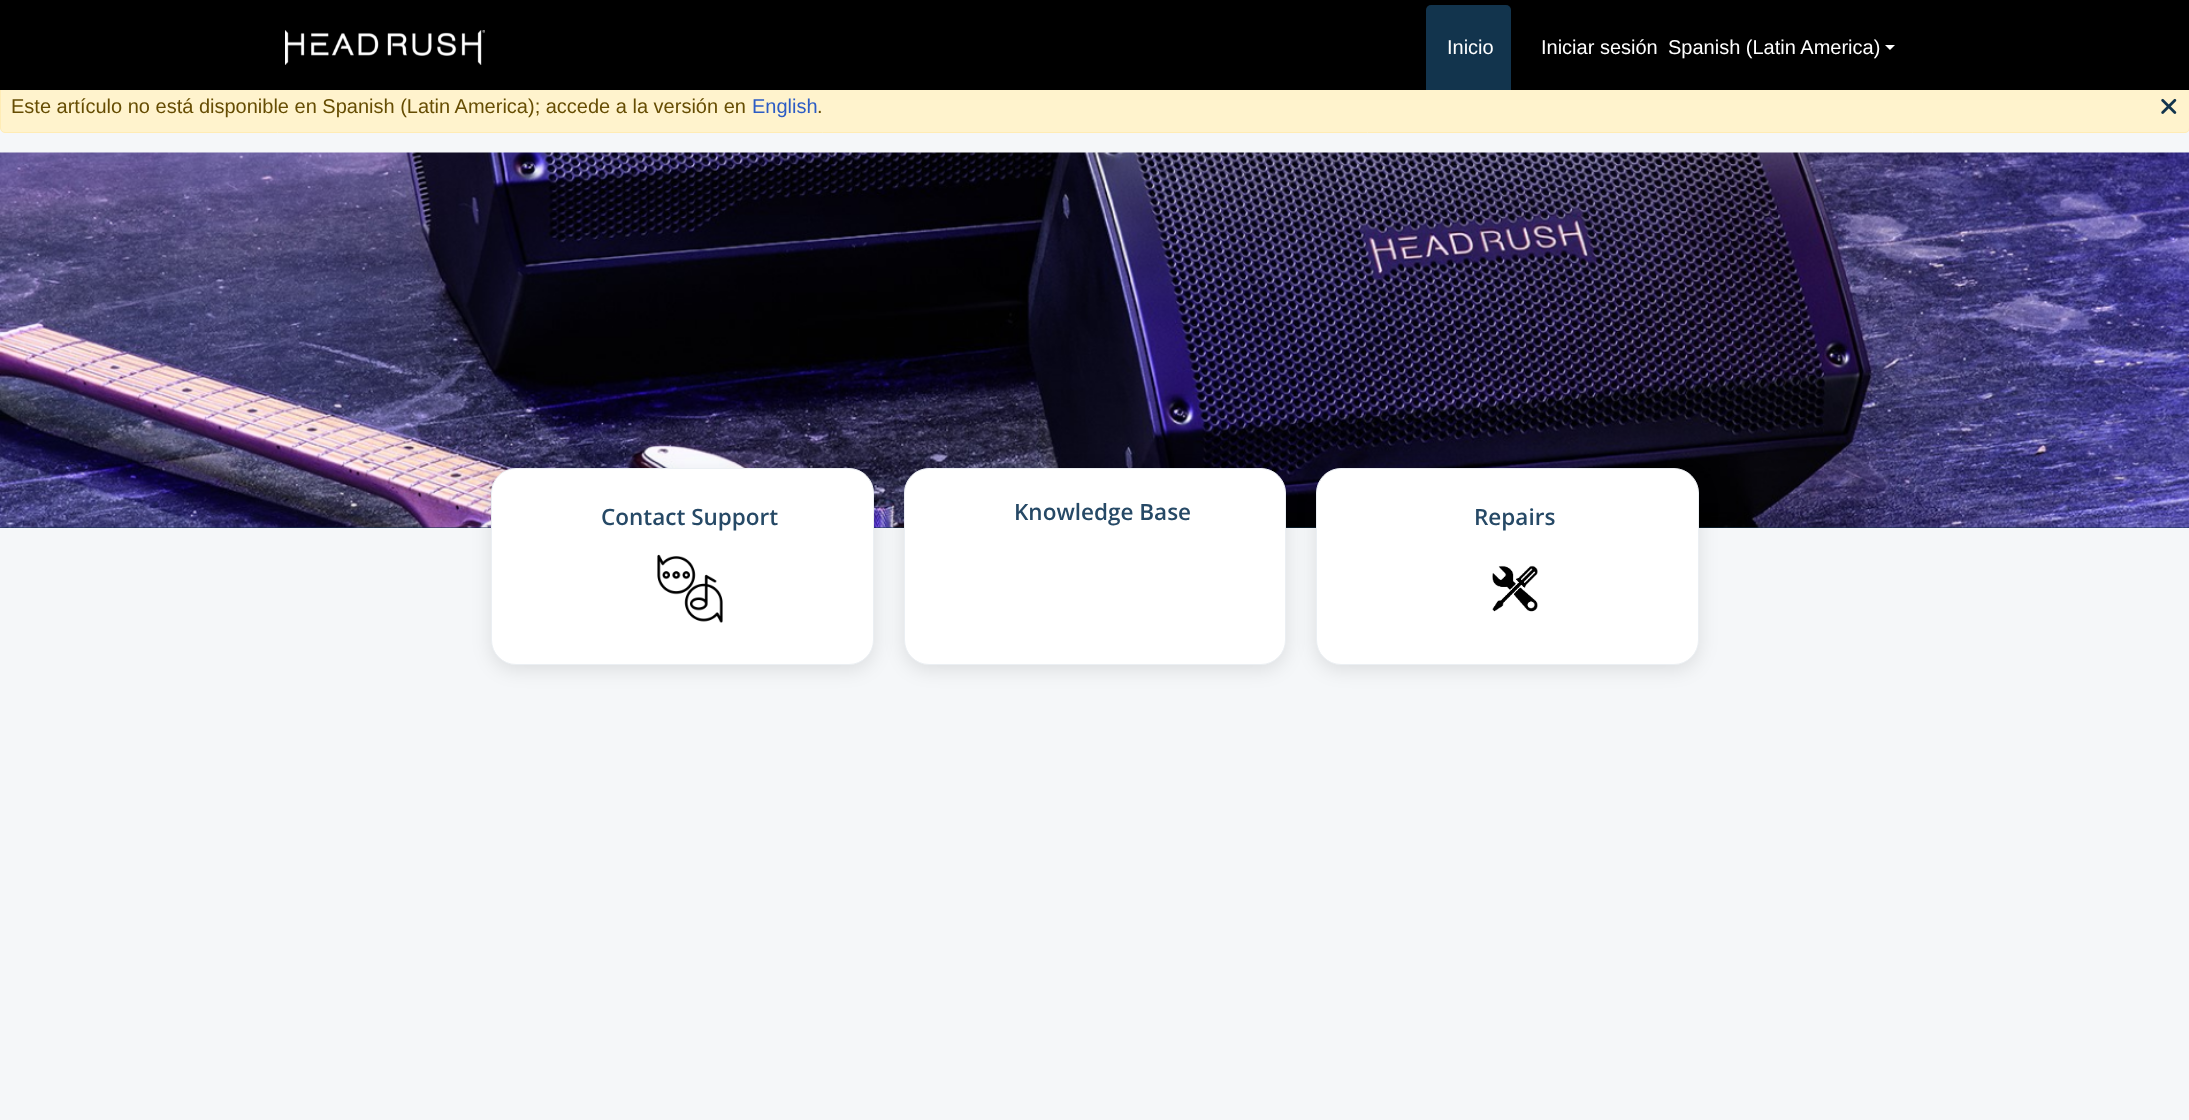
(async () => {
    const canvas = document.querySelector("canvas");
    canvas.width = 2189;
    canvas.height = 1120;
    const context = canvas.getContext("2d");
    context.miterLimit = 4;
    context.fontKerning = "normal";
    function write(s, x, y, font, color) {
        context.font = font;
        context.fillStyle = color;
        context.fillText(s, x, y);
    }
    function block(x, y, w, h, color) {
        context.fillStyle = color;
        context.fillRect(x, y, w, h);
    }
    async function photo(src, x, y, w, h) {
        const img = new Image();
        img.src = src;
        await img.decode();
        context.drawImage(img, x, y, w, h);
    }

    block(0, 0, 2189, 1120, "rgb(245, 247, 249)");
    context.fillStyle = "rgb(255, 243, 205)";
    context.beginPath();
    context.roundRect(0.5, 80.5, 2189, 52, 4.5);
    context.fill();
    context.strokeStyle = "rgb(255, 236, 181)";
    context.stroke();
    block(0, 0, 2189, 90, "rgb(0, 0, 0)");
    await photo("media/1.png", 285, 30, 200, 35);
    context.fillStyle = "rgb(18, 52, 77)";
    context.beginPath();
    context.roundRect(1426, 5, 85, 85, [5, 5, 0, 0]);
    context.fill();
    write("Inicio", 1447, 54, "20px Liberation Sans", "rgb(255, 255, 255)");
    write("Iniciar sesión", 1541, 54, "20px Liberation Sans", "rgb(255, 255, 255)");
    write("Spanish (Latin America)", 1668, 54, "20px Liberation Sans", "rgb(255, 255, 255)");
    context.beginPath();
    context.moveTo(1885, 45);
    context.lineTo(1895, 45);
    context.lineTo(1890, 50);
    context.closePath();
    context.fill();
    write("Este artículo no está disponible en Spanish (Latin America); accede a la versión en", 11, 113, "20px Liberation Sans", "rgb(102, 77, 3)");
    write("English", 752, 113, "20px Liberation Sans", "rgb(44, 92, 197)");
    write(".", 817, 113, "20px Liberation Sans", "rgb(102, 77, 3)");
    await photo("media/2.png", 2161, 98, 16, 16);
    block(0, 527, 2189, 1, "rgb(18, 52, 77)");
    await photo("media/3.png", 0, 152, 2189, 376);
    context.fillStyle = "rgba(0, 0, 0, 0.1)";
    context.filter = "blur(9.5px)";
    context.beginPath();
    context.roundRect(491, 473, 383, 197, 25);
    context.fill();
    context.filter = "none";
    context.fillStyle = "rgb(255, 255, 255)";
    context.beginPath();
    context.roundRect(491.5, 468.5, 382, 196, 24.5);
    context.fill();
    context.strokeStyle = "rgb(235, 239, 243)";
    context.stroke();
    write("Contact Support", 601, 525, "600 22.5px Open Sans", "rgb(38, 73, 102)");
    await photo("media/4.png", 657, 554, 66, 69);
    context.fillStyle = "rgba(0, 0, 0, 0.1)";
    context.filter = "blur(9.5px)";
    context.beginPath();
    context.roundRect(904, 473, 382, 197, 25);
    context.fill();
    context.filter = "none";
    context.fillStyle = "rgb(255, 255, 255)";
    context.beginPath();
    context.roundRect(904.5, 468.5, 381, 196, 24.5);
    context.fill();
    context.stroke();
    write("Knowledge Base", 1014, 520, "600 22.5px Open Sans", "rgb(38, 73, 102)");
    context.fillStyle = "rgba(0, 0, 0, 0.1)";
    context.filter = "blur(9.5px)";
    context.beginPath();
    context.roundRect(1316, 473, 383, 197, 25);
    context.fill();
    context.filter = "none";
    context.fillStyle = "rgb(255, 255, 255)";
    context.beginPath();
    context.roundRect(1316.5, 468.5, 382, 196, 24.5);
    context.fill();
    context.stroke();
    write("Repairs", 1474, 525, "600 22.5px Open Sans", "rgb(38, 73, 102)");
    await photo("media/5.png", 1492, 565, 46, 47);
})();
